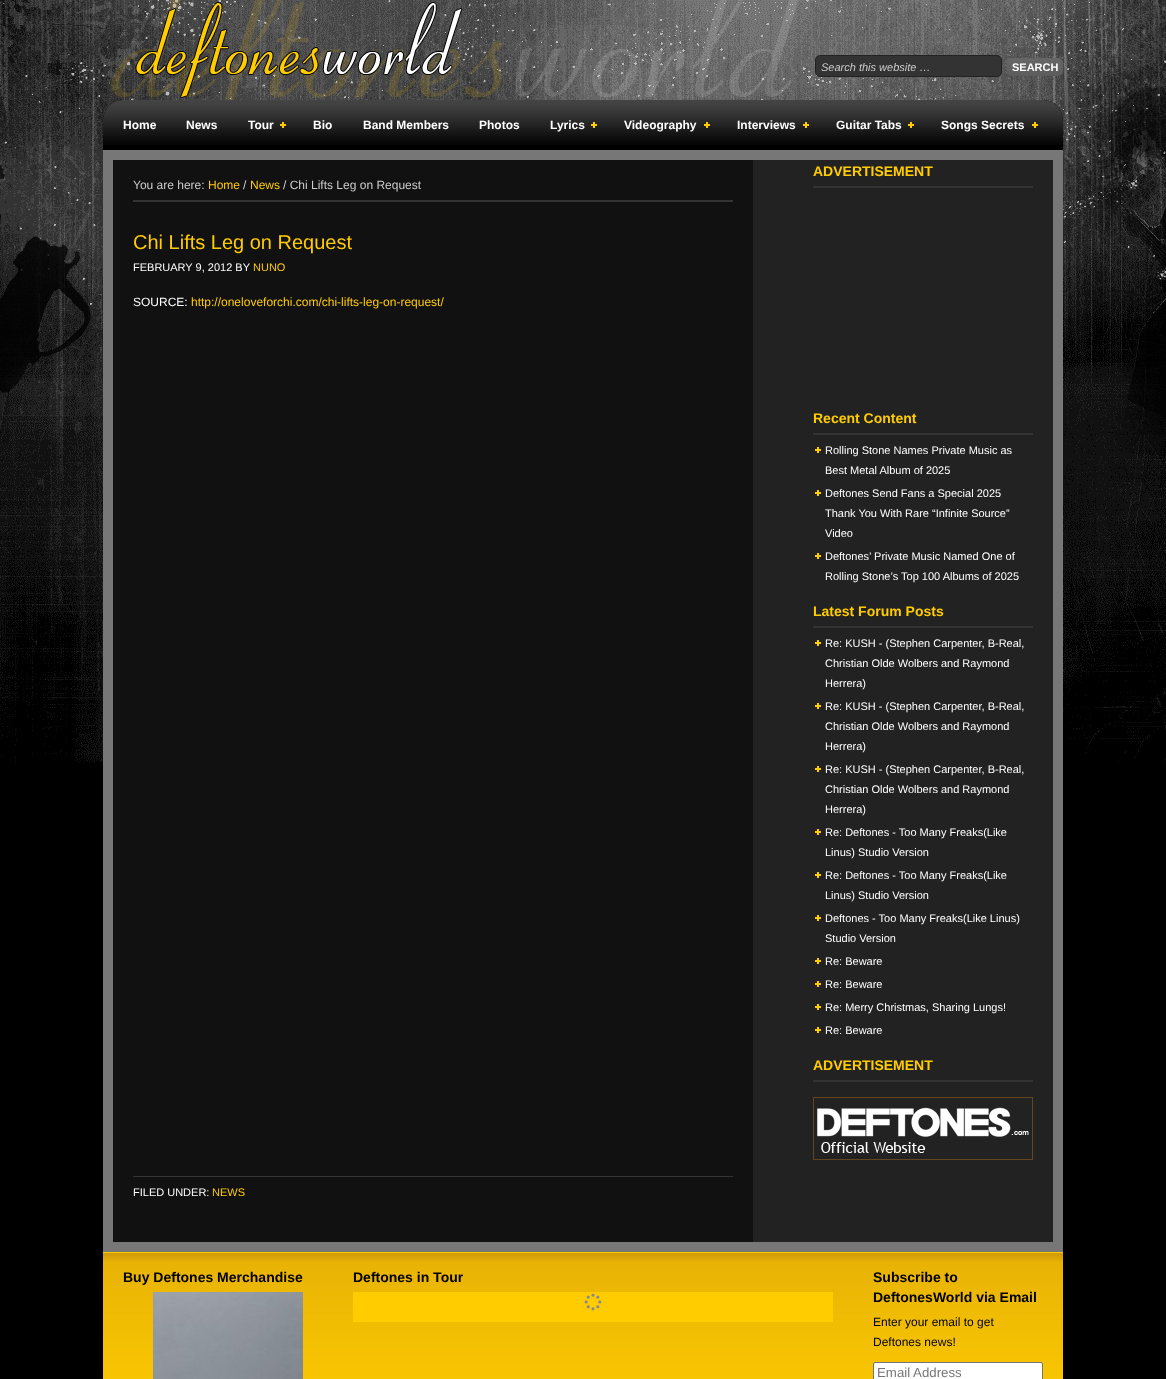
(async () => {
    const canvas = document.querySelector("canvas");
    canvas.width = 1166;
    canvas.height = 1379;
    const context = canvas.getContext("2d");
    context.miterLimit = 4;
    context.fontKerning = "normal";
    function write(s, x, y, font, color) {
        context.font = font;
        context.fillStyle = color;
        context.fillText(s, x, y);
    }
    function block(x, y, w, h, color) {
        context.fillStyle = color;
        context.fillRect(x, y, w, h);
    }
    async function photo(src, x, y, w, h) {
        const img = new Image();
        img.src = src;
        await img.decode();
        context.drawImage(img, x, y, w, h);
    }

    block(0, 0, 1166, 1379, "rgb(0, 0, 0)");
    await photo("media/1.png", 0, 0, 1166, 762);
    await photo("media/2.png", 111, 0, 688, 100);
    context.fillStyle = "rgb(51, 51, 51)";
    context.beginPath();
    context.roundRect(815.5, 55.5, 186, 21, 4.5);
    context.fill();
    context.strokeStyle = "rgb(34, 34, 34)";
    context.stroke();
    write("Search this website …", 821, 71, "italic 11px Liberation Sans", "rgb(204, 204, 204)");
    await photo("media/3.png", 1007, 58, 56, 18);
    write("SEARCH", 1012, 71, "bold 11px Liberation Sans", "rgb(255, 255, 255)");
    context.fillStyle = "rgb(0, 0, 0)";
    context.beginPath();
    context.roundRect(103, 100, 960, 50, [20, 20, 0, 0]);
    context.fill();
    await photo("media/4.png", 103, 100, 960, 45);
    write("Home", 123, 129, "bold 12px Liberation Sans", "rgb(255, 255, 255)");
    write("News", 186, 129, "bold 12px Liberation Sans", "rgb(255, 255, 255)");
    write("Tour", 248, 129, "bold 12px Liberation Sans", "rgb(255, 255, 255)");
    await photo("media/5.png", 280, 122, 6, 6);
    write("Bio", 313, 129, "bold 12px Liberation Sans", "rgb(255, 255, 255)");
    write("Band Members", 363, 129, "bold 12px Liberation Sans", "rgb(255, 255, 255)");
    write("Photos", 479, 129, "bold 12px Liberation Sans", "rgb(255, 255, 255)");
    write("Lyrics", 550, 129, "bold 12px Liberation Sans", "rgb(255, 255, 255)");
    await photo("media/5.png", 591, 122, 6, 6);
    write("Videography", 624, 129, "bold 12px Liberation Sans", "rgb(255, 255, 255)");
    await photo("media/5.png", 704, 122, 6, 6);
    write("Interviews", 737, 129, "bold 12px Liberation Sans", "rgb(255, 255, 255)");
    await photo("media/5.png", 803, 122, 6, 6);
    write("Guitar Tabs", 836, 129, "bold 12px Liberation Sans", "rgb(255, 255, 255)");
    await photo("media/5.png", 908, 122, 6, 6);
    write("Songs Secrets", 941, 129, "bold 12px Liberation Sans", "rgb(255, 255, 255)");
    await photo("media/5.png", 1032, 122, 6, 6);
    await photo("media/6.png", 113, 160, 940, 1082);
    context.strokeStyle = "rgb(119, 119, 119)";
    context.lineWidth = 10;
    context.strokeRect(108, 155, 950, 1092);
    block(133, 200, 600, 2, "rgb(51, 51, 51)");
    write("You are here:", 133, 189, "12px Liberation Sans", "rgb(204, 204, 204)");
    write("Home", 208, 189, "12px Liberation Sans", "rgb(255, 204, 0)");
    write("/", 243, 189, "12px Liberation Sans", "rgb(204, 204, 204)");
    write("News", 250, 189, "12px Liberation Sans", "rgb(255, 204, 0)");
    write("/ Chi Lifts Leg on Request", 283, 189, "12px Liberation Sans", "rgb(204, 204, 204)");
    write("Chi Lifts Leg on Request", 133, 249, "20px Liberation Sans", "rgb(255, 204, 0)");
    write("FEBRUARY 9, 2012 BY", 133, 271, "11px Liberation Sans", "rgb(255, 255, 255)");
    write("NUNO", 253, 271, "11px Liberation Sans", "rgb(255, 204, 0)");
    write("SOURCE:", 133, 306, "12px Liberation Sans", "rgb(255, 255, 255)");
    write("http://oneloveforchi.com/chi-lifts-leg-on-request/", 191, 306, "12px Liberation Sans", "rgb(255, 204, 0)");
    block(133, 1176, 600, 1, "rgb(51, 51, 51)");
    write("FILED UNDER:", 133, 1196, "11px Liberation Sans", "rgb(255, 255, 255)");
    write("NEWS", 212, 1196, "11px Liberation Sans", "rgb(255, 204, 0)");
    block(813, 186, 220, 2, "rgb(51, 51, 51)");
    write("ADVERTISEMENT", 813, 176, "bold 14px Liberation Sans", "rgb(255, 204, 0)");
    block(813, 433, 220, 2, "rgb(51, 51, 51)");
    write("Recent Content", 813, 423, "bold 14px Liberation Sans", "rgb(255, 204, 0)");
    await photo("media/7.png", 815, 447, 6, 6);
    write("Rolling Stone Names Private Music as", 825, 454, "11px Liberation Sans", "rgb(255, 255, 255)");
    write("Best Metal Album of 2025", 825, 474, "11px Liberation Sans", "rgb(255, 255, 255)");
    await photo("media/7.png", 815, 490, 6, 6);
    write("Deftones Send Fans a Special 2025", 825, 497, "11px Liberation Sans", "rgb(255, 255, 255)");
    write("Thank You With Rare “Infinite Source”", 825, 517, "11px Liberation Sans", "rgb(255, 255, 255)");
    write("Video", 825, 537, "11px Liberation Sans", "rgb(255, 255, 255)");
    await photo("media/7.png", 815, 553, 6, 6);
    write("Deftones’ Private Music Named One of", 825, 560, "11px Liberation Sans", "rgb(255, 255, 255)");
    write("Rolling Stone’s Top 100 Albums of 2025", 825, 580, "11px Liberation Sans", "rgb(255, 255, 255)");
    block(813, 626, 220, 2, "rgb(51, 51, 51)");
    write("Latest Forum Posts", 813, 616, "bold 14px Liberation Sans", "rgb(255, 204, 0)");
    await photo("media/7.png", 815, 640, 6, 6);
    write("Re: KUSH - (Stephen Carpenter, B-Real,", 825, 647, "11px Liberation Sans", "rgb(255, 255, 255)");
    write("Christian Olde Wolbers and Raymond", 825, 667, "11px Liberation Sans", "rgb(255, 255, 255)");
    write("Herrera)", 825, 687, "11px Liberation Sans", "rgb(255, 255, 255)");
    await photo("media/7.png", 815, 703, 6, 6);
    write("Re: KUSH - (Stephen Carpenter, B-Real,", 825, 710, "11px Liberation Sans", "rgb(255, 255, 255)");
    write("Christian Olde Wolbers and Raymond", 825, 730, "11px Liberation Sans", "rgb(255, 255, 255)");
    write("Herrera)", 825, 750, "11px Liberation Sans", "rgb(255, 255, 255)");
    await photo("media/7.png", 815, 766, 6, 6);
    write("Re: KUSH - (Stephen Carpenter, B-Real,", 825, 773, "11px Liberation Sans", "rgb(255, 255, 255)");
    write("Christian Olde Wolbers and Raymond", 825, 793, "11px Liberation Sans", "rgb(255, 255, 255)");
    write("Herrera)", 825, 813, "11px Liberation Sans", "rgb(255, 255, 255)");
    await photo("media/7.png", 815, 829, 6, 6);
    write("Re: Deftones - Too Many Freaks(Like", 825, 836, "11px Liberation Sans", "rgb(255, 255, 255)");
    write("Linus) Studio Version", 825, 856, "11px Liberation Sans", "rgb(255, 255, 255)");
    await photo("media/7.png", 815, 872, 6, 6);
    write("Re: Deftones - Too Many Freaks(Like", 825, 879, "11px Liberation Sans", "rgb(255, 255, 255)");
    write("Linus) Studio Version", 825, 899, "11px Liberation Sans", "rgb(255, 255, 255)");
    await photo("media/7.png", 815, 915, 6, 6);
    write("Deftones - Too Many Freaks(Like Linus)", 825, 922, "11px Liberation Sans", "rgb(255, 255, 255)");
    write("Studio Version", 825, 942, "11px Liberation Sans", "rgb(255, 255, 255)");
    await photo("media/7.png", 815, 958, 6, 6);
    write("Re: Beware", 825, 965, "11px Liberation Sans", "rgb(255, 255, 255)");
    await photo("media/7.png", 815, 981, 6, 6);
    write("Re: Beware", 825, 988, "11px Liberation Sans", "rgb(255, 255, 255)");
    await photo("media/7.png", 815, 1004, 6, 6);
    write("Re: Merry Christmas, Sharing Lungs!", 825, 1011, "11px Liberation Sans", "rgb(255, 255, 255)");
    await photo("media/7.png", 815, 1027, 6, 6);
    write("Re: Beware", 825, 1034, "11px Liberation Sans", "rgb(255, 255, 255)");
    block(813, 1080, 220, 2, "rgb(51, 51, 51)");
    write("ADVERTISEMENT", 813, 1070, "bold 14px Liberation Sans", "rgb(255, 204, 0)");
    await photo("media/8.png", 813, 1097, 220, 63);
    block(103, 1252, 960, 1, "rgb(255, 204, 0)");
    await photo("media/9.png", 103, 1253, 960, 126);
    write("Buy Deftones Merchandise", 123, 1282, "bold 14px Liberation Sans", "rgb(0, 0, 0)");
    await photo("media/10.png", 153, 1292, 150, 87);
    write("Deftones in Tour", 353, 1282, "bold 14px Liberation Sans", "rgb(0, 0, 0)");
    block(353, 1292, 480, 30, "rgb(255, 204, 0)");
    await photo("media/11.png", 584, 1293, 18, 18);
    write("Subscribe to", 873, 1282, "bold 14px Liberation Sans", "rgb(0, 0, 0)");
    write("DeftonesWorld via Email", 873, 1302, "bold 14px Liberation Sans", "rgb(0, 0, 0)");
    write("Enter your email to get", 873, 1326, "12px Liberation Sans", "rgb(0, 0, 0)");
    write("Deftones news!", 873, 1346, "12px Liberation Sans", "rgb(0, 0, 0)");
    context.fillStyle = "rgb(255, 255, 255)";
    context.beginPath();
    context.roundRect(873.5, 1362.5, 169, 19, 1.5);
    context.fill();
    context.strokeStyle = "rgb(118, 118, 118)";
    context.lineWidth = 1;
    context.stroke();
    write("Email Address", 877, 1377, "13.25px Liberation Sans", "rgb(117, 117, 117)");
})();
